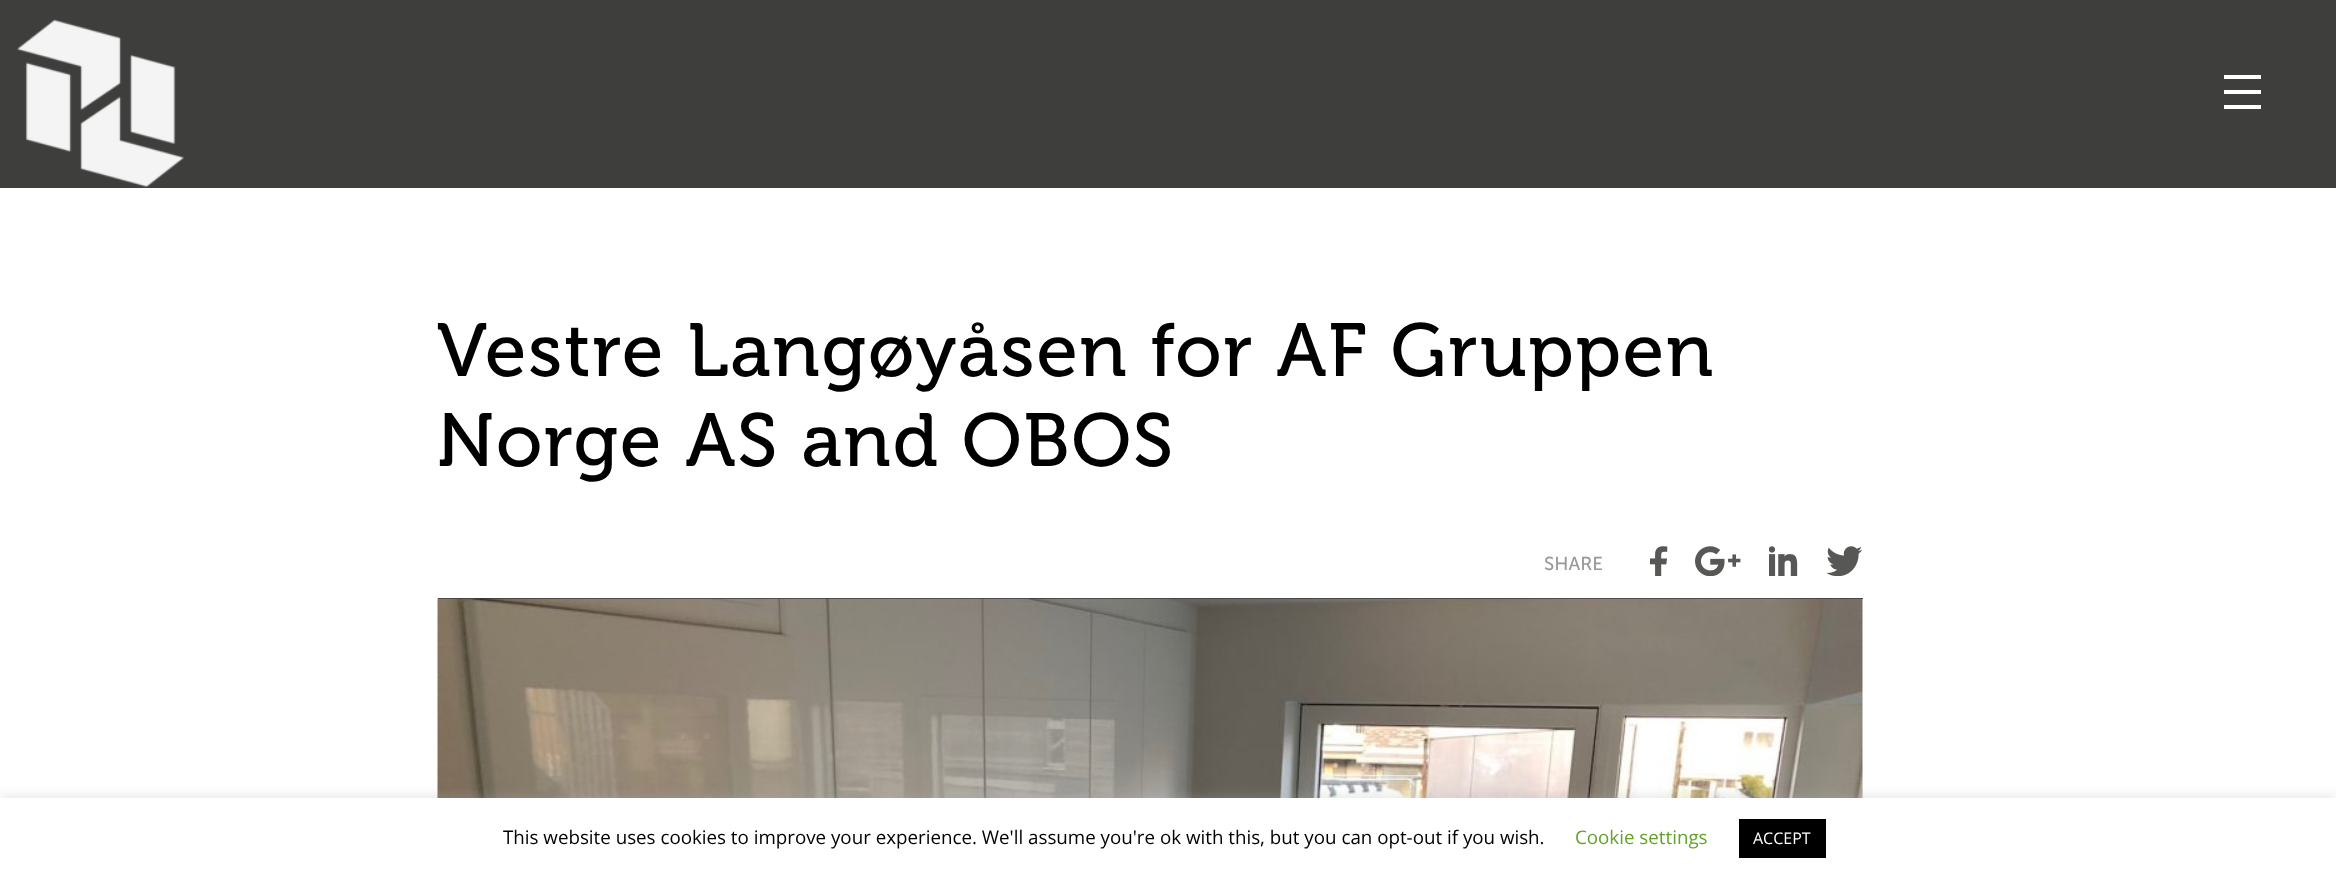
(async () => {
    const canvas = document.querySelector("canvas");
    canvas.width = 2336;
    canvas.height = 878;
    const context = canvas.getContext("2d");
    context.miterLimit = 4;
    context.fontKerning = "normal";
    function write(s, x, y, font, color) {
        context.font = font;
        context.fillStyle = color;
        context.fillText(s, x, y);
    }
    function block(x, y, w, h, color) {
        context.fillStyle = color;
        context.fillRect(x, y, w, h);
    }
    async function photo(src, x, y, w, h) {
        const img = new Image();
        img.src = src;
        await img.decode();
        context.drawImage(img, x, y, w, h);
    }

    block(0, 0, 2336, 878, "rgb(62, 62, 61)");
    await photo("media/1.png", 17, 19, 167, 169);
    block(2224, 75, 37, 4, "rgb(255, 255, 255)");
    block(2224, 90, 37, 4, "rgb(255, 255, 255)");
    block(2224, 105, 37, 4, "rgb(255, 255, 255)");
    block(0, 188, 2336, 610, "rgb(255, 255, 255)");
    context.letterSpacing = "1.9px";
    write("Vestre Langøyåsen for AF Gruppen", 437, 376, "75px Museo", "rgb(0, 0, 0)");
    write("Norge AS and OBOS", 437, 466, "75px Museo", "rgb(0, 0, 0)");
    block(438, 598, 1425, 1, "rgb(62, 62, 61)");
    context.letterSpacing = "0px";
    write("SHARE", 1544, 570, "18.75px Museo Sans", "rgb(153, 153, 153)");
    await photo("media/2.png", 1650, 546, 18, 30);
    await photo("media/3.png", 1695, 546, 46, 30);
    await photo("media/4.png", 1769, 546, 29, 30);
    await photo("media/5.png", 1826, 546, 36, 30);
    await photo("media/6.png", 437, 598, 1426, 200);
    context.fillStyle = "rgba(172, 171, 171, 0.3)";
    context.filter = "blur(6px)";
    context.beginPath();
    context.rect(0, 796, 2336, 82);
    context.fill();
    context.filter = "none";
    block(0, 798, 2336, 80, "rgb(255, 255, 255)");
    write("This website uses cookies to improve your experience. We'll assume you're ok with this, but you can opt-out if you wish.", 503, 844, "18.75px Open Sans", "rgb(0, 0, 0)");
    write("Cookie settings", 1575, 844, "18.75px Open Sans", "rgb(98, 163, 41)");
    block(1739, 819, 87, 39, "rgb(0, 0, 0)");
    write("ACCEPT", 1753, 844, "16px Open Sans", "rgb(255, 255, 255)");
})();
